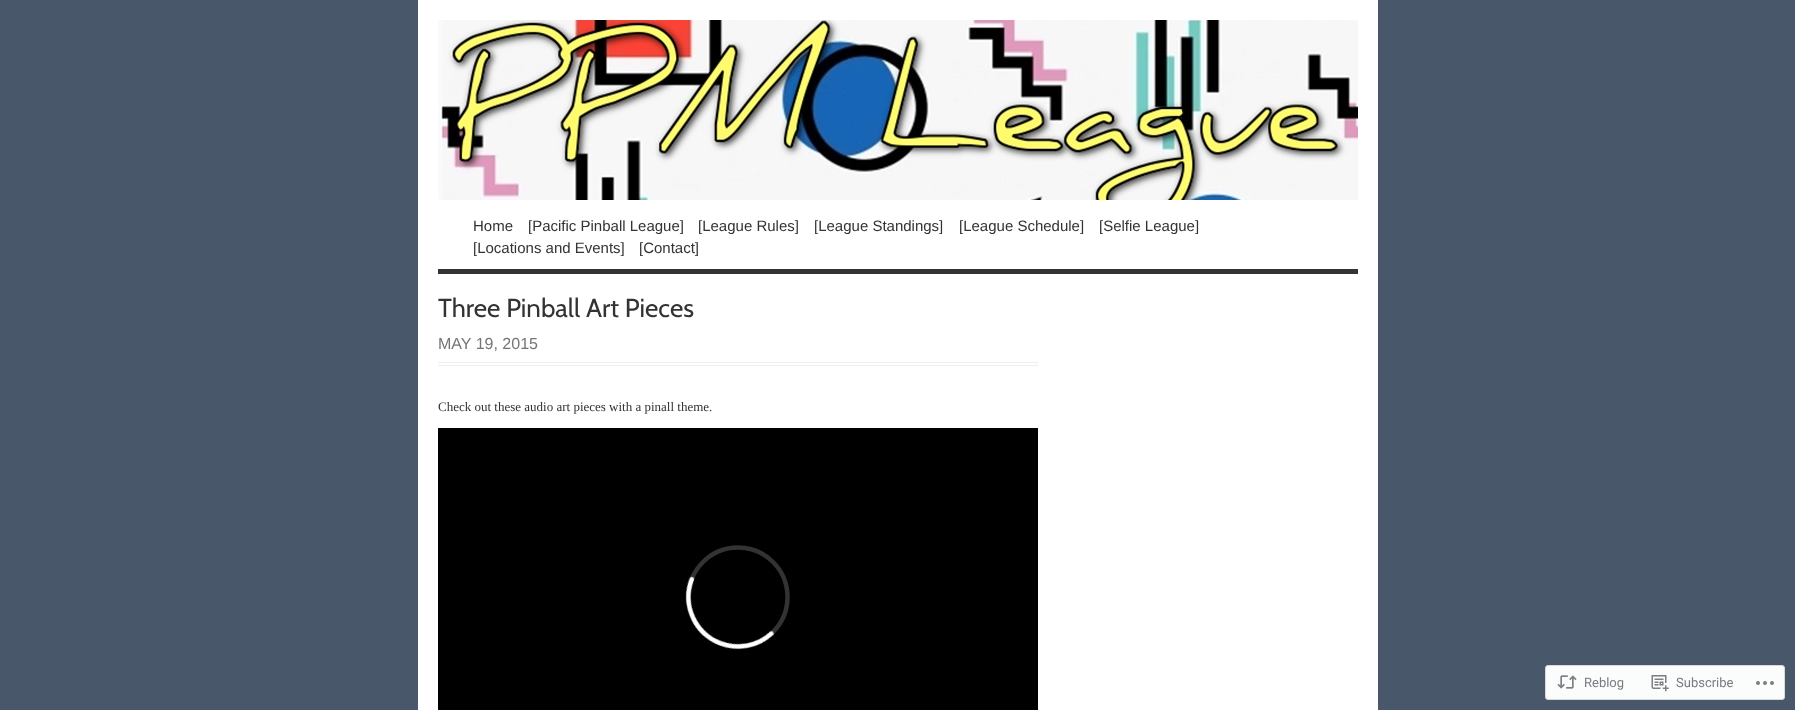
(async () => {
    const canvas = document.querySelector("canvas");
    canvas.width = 1795;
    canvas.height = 710;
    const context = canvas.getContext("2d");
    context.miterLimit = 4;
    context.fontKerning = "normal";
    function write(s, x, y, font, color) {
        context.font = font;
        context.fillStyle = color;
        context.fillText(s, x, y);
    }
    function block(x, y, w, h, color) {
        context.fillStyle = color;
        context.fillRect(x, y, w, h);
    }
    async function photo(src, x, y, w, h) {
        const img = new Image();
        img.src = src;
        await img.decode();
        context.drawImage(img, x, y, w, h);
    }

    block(0, 0, 1795, 710, "rgb(72, 87, 106)");
    block(418, 0, 960, 710, "rgb(255, 255, 255)");
    block(438, 269, 920, 5, "rgb(51, 51, 51)");
    await photo("media/1.png", 438, 20, 920, 180);
    write("Home", 473, 231, "15px Liberation Sans", "rgb(51, 51, 51)");
    write("[Pacific Pinball League]", 528, 231, "15px Liberation Sans", "rgb(51, 51, 51)");
    write("[League Rules]", 698, 231, "15px Liberation Sans", "rgb(51, 51, 51)");
    write("[League Standings]", 814, 231, "15px Liberation Sans", "rgb(51, 51, 51)");
    write("[League Schedule]", 959, 231, "15px Liberation Sans", "rgb(51, 51, 51)");
    write("[Selfie League]", 1099, 231, "15px Liberation Sans", "rgb(51, 51, 51)");
    write("[Locations and Events]", 473, 253, "15px Liberation Sans", "rgb(51, 51, 51)");
    write("[Contact]", 639, 253, "15px Liberation Sans", "rgb(51, 51, 51)");
    block(438, 362, 600, 1, "rgb(238, 238, 238)");
    block(438, 365, 600, 1, "rgb(238, 238, 238)");
    write("Three Pinball Art Pieces", 438, 317, "26px Cabin", "rgb(51, 51, 51)");
    write("MAY 19, 2015", 438, 349, "16px Liberation Sans", "rgb(117, 117, 117)");
    write("Check out these audio art pieces with a pinall theme.", 438, 411, "13px Liberation Serif", "rgb(51, 51, 51)");
    await photo("media/2.png", 438, 428, 600, 282);
    context.fillStyle = "rgb(251, 252, 252)";
    context.beginPath();
    context.roundRect(1545.5, 665.5, 239, 34, 2.5);
    context.fill();
    context.strokeStyle = "rgb(217, 217, 220)";
    context.stroke();
    await photo("media/3.png", 1557, 675, 20, 14);
    write("Reblog", 1584, 687, "13px Roboto", "rgb(119, 123, 130)");
    await photo("media/4.png", 1651, 675, 18, 17);
    write("Subscribe", 1676, 687, "13px Roboto", "rgb(119, 123, 130)");
    await photo("media/5.png", 1756, 681, 18, 4);
})();
